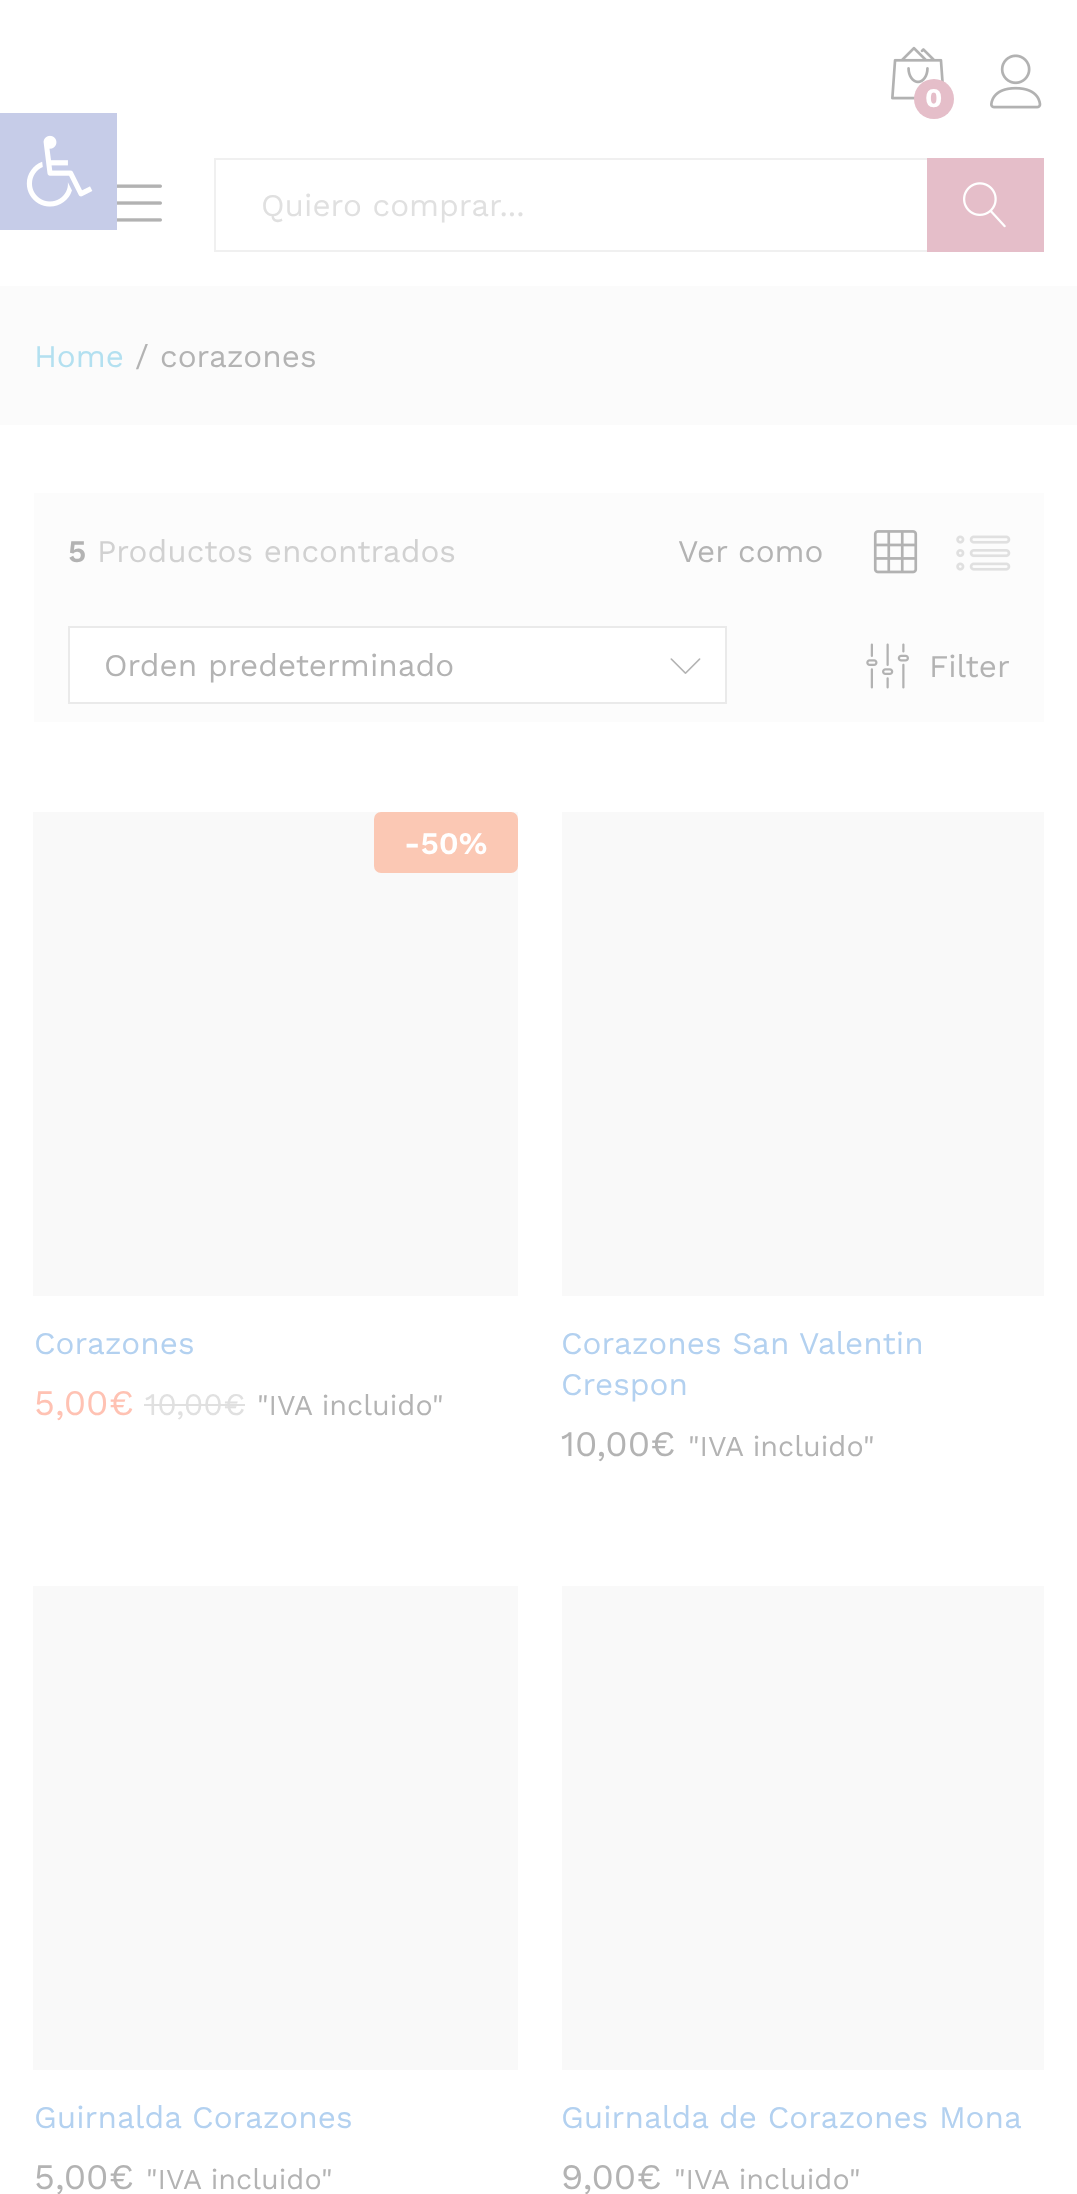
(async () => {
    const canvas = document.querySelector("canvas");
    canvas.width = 1077;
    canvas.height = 2194;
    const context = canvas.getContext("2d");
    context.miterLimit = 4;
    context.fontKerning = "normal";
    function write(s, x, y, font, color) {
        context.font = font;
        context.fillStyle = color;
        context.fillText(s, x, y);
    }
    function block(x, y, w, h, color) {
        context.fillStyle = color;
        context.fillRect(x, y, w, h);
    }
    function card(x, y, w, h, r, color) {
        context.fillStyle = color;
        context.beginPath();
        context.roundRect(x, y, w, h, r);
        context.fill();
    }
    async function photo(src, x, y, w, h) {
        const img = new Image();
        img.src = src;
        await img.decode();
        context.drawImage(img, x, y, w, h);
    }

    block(0, 0, 1077, 2194, "rgb(255, 255, 255)");
    await photo("media/1.png", 891, 46, 53, 54);
    context.fillStyle = "rgb(229, 190, 201)";
    context.beginPath();
    context.arc(934, 99, 20, 0, Math.PI * 2);
    context.fill();
    write("0", 925, 107, "bold 27px Work Sans", "rgb(255, 255, 255)");
    await photo("media/2.png", 990, 54, 52, 55);
    await photo("media/3.png", 117, 184, 45, 38);
    block(214, 158, 713, 2, "rgb(240, 240, 240)");
    block(214, 250, 713, 2, "rgb(240, 240, 240)");
    block(214, 158, 2, 94, "rgb(240, 240, 240)");
    write("Quiero comprar...", 261, 216, "31.5px Work Sans", "rgb(224, 224, 224)");
    block(927, 158, 117, 94, "rgb(229, 190, 201)");
    await photo("media/4.png", 963, 182, 43, 46);
    block(0, 286, 1077, 139, "rgb(251, 251, 251)");
    write("Home", 34, 367, "31.5px Work Sans", "rgb(179, 224, 240)");
    write("/", 135, 367, "31.5px Work Sans", "rgb(179, 179, 179)");
    write("corazones", 160, 367, "31.5px Work Sans", "rgb(179, 179, 179)");
    block(34, 493, 1010, 229, "rgb(252, 252, 252)");
    write("5", 68, 562, "600 31.5px Work Sans", "rgb(179, 179, 179)");
    write("Productos encontrados", 97, 562, "31.5px Work Sans", "rgb(209, 209, 209)");
    write("Ver como", 678, 562, "31.5px Work Sans", "rgb(179, 179, 179)");
    await photo("media/5.png", 873, 530, 45, 44);
    await photo("media/6.png", 956, 535, 55, 36);
    context.fillStyle = "rgb(255, 255, 255)";
    context.beginPath();
    context.rect(69, 627, 657, 76);
    context.fill();
    context.strokeStyle = "rgb(234, 234, 234)";
    context.lineWidth = 2;
    context.stroke();
    write("Orden predeterminado", 104, 676, "31.5px Work Sans", "rgb(179, 179, 179)");
    await photo("media/7.png", 670, 658, 31, 16);
    await photo("media/8.png", 866, 643, 43, 46);
    write("Filter", 929, 677, "31.5px Work Sans", "rgb(179, 179, 179)");
    block(33, 812, 485, 484, "rgb(249, 249, 249)");
    card(374, 812, 144, 61, 7, "rgb(251, 200, 180)");
    write("-50%", 404, 854, "600 31.5px Work Sans", "rgb(255, 255, 255)");
    write("Corazones", 34, 1354, "31.5px Work Sans", "rgb(179, 209, 240)");
    write("5,00€", 34, 1415, "36px Work Sans", "rgb(255, 194, 179)");
    write("10,00€", 145, 1415, "31.5px Work Sans", "rgb(224, 224, 224)");
    block(144, 1404, 101, 2, "rgb(224, 224, 224)");
    write("\"IVA incluido\"", 257, 1415, "28.75px Work Sans", "rgb(179, 179, 179)");
    block(562, 812, 482, 484, "rgb(249, 249, 249)");
    write("Corazones San Valentin", 561, 1354, "31.5px Work Sans", "rgb(179, 209, 240)");
    write("Crespon", 561, 1395, "31.5px Work Sans", "rgb(179, 209, 240)");
    write("10,00€", 561, 1456, "36px Work Sans", "rgb(179, 179, 179)");
    write("\"IVA incluido\"", 688, 1456, "28.75px Work Sans", "rgb(179, 179, 179)");
    block(33, 1586, 485, 484, "rgb(249, 249, 249)");
    write("Guirnalda Corazones", 34, 2128, "31.5px Work Sans", "rgb(179, 209, 240)");
    write("5,00€", 34, 2189, "36px Work Sans", "rgb(179, 179, 179)");
    write("\"IVA incluido\"", 146, 2189, "28.75px Work Sans", "rgb(179, 179, 179)");
    block(562, 1586, 482, 484, "rgb(249, 249, 249)");
    write("Guirnalda de Corazones Mona", 561, 2128, "31.5px Work Sans", "rgb(179, 209, 240)");
    write("9,00€", 561, 2189, "36px Work Sans", "rgb(179, 179, 179)");
    write("\"IVA incluido\"", 674, 2189, "28.75px Work Sans", "rgb(179, 179, 179)");
    block(0, 113, 117, 117, "rgb(198, 204, 232)");
    await photo("media/9.png", 26, 135, 67, 72);
})();
